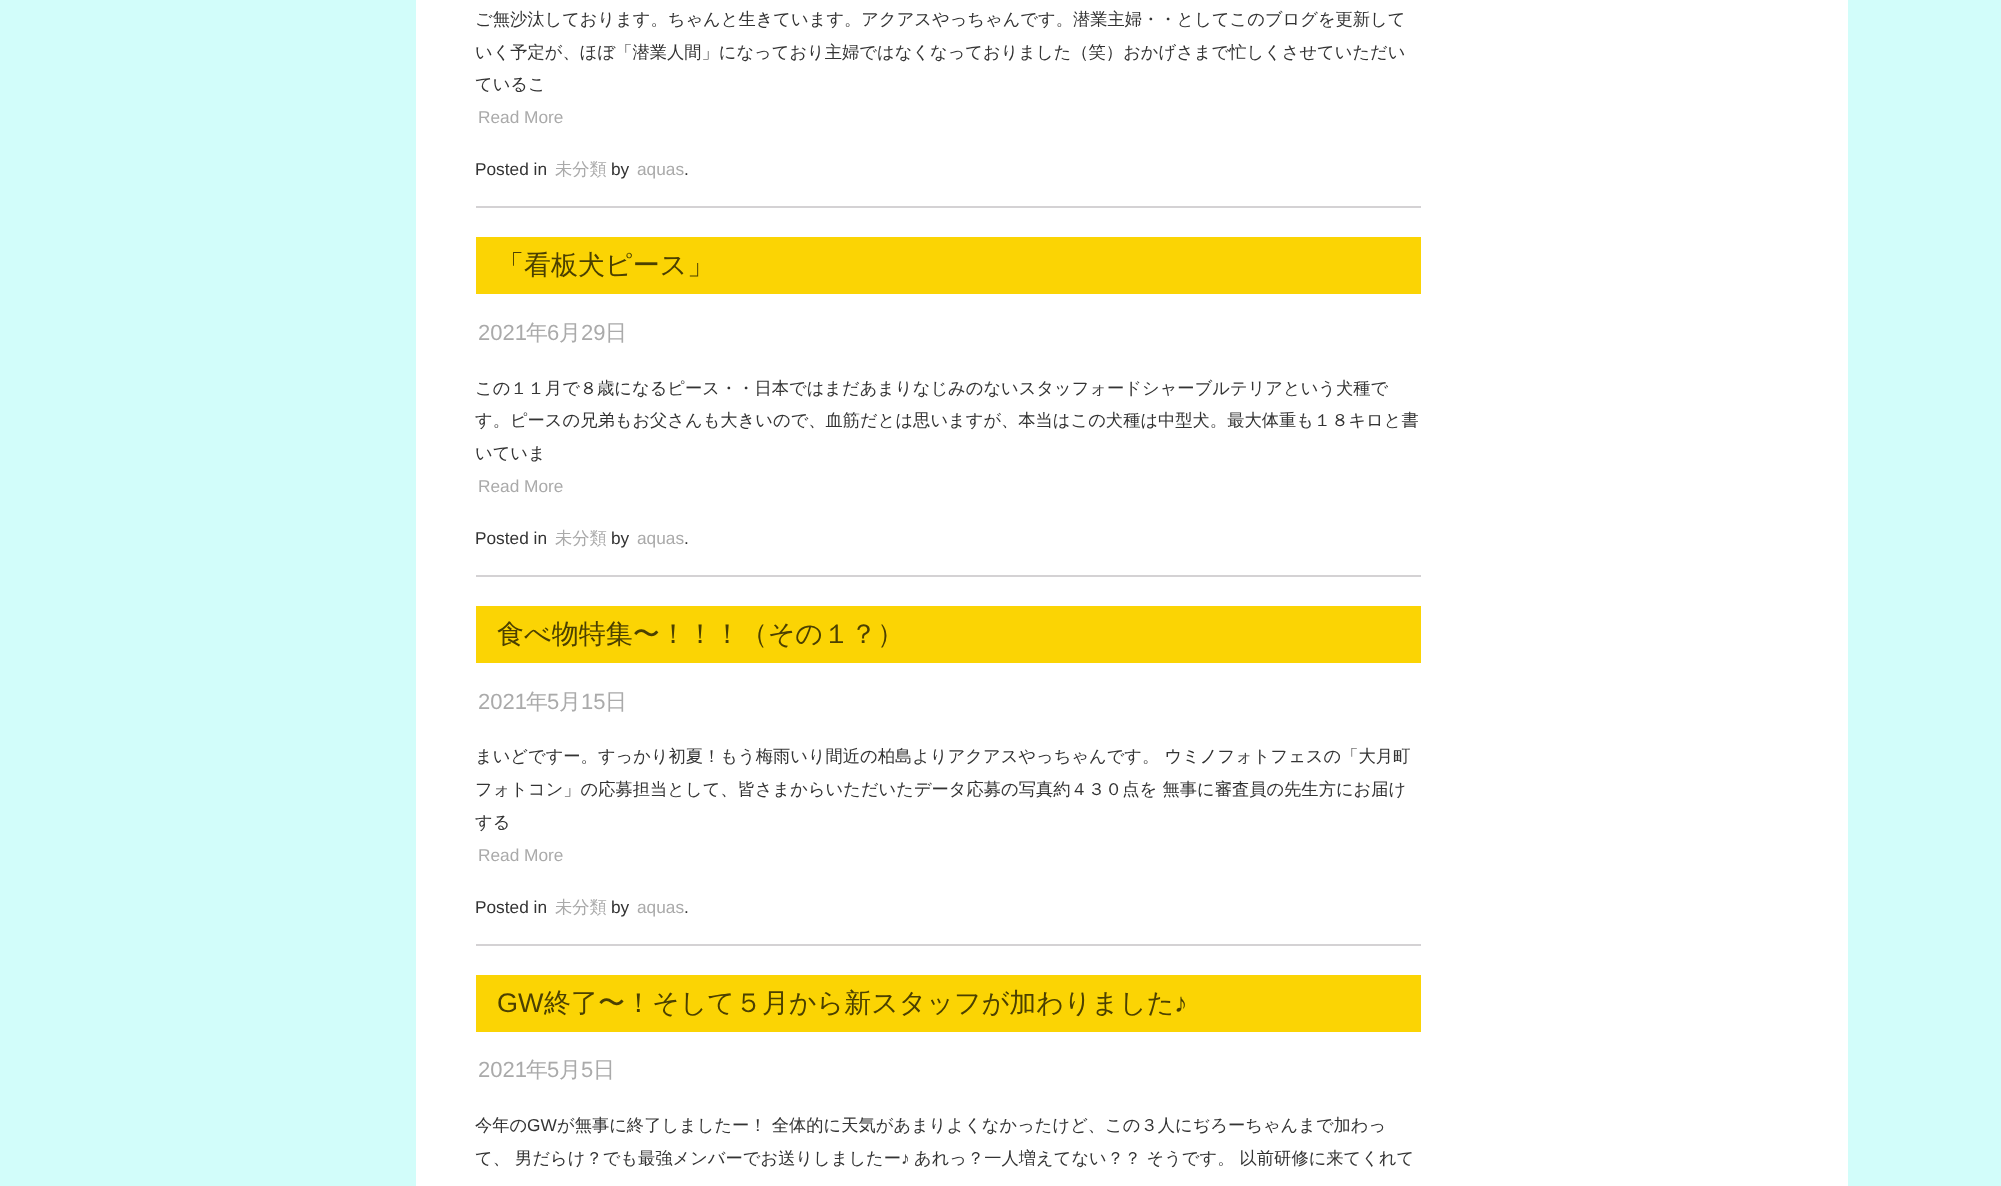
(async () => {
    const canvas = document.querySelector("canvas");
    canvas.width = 2001;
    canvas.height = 1186;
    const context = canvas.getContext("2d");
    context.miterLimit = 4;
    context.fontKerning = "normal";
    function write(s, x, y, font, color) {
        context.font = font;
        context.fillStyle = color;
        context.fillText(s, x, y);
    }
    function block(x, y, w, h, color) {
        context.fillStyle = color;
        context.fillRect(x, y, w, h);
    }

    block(0, 0, 2001, 1186, "rgb(210, 253, 250)");
    block(416, 0, 1432, 1186, "rgb(255, 255, 255)");
    block(476, 206, 945, 2, "rgb(212, 210, 212)");
    write("ご無沙汰しております。ちゃんと生きています。アクアスやっちゃんです。潜業主婦・・としてこのブログを更新して", 475, 25, "500 17.28px WenQuanYi Zen Hei", "rgb(51, 51, 51)");
    write("いく予定が、ほぼ「潜業人間」になっており主婦ではなくなっておりました（笑）おかげさまで忙しくさせていただい", 475, 58, "500 17.28px WenQuanYi Zen Hei", "rgb(51, 51, 51)");
    write("ているこ", 475, 90, "500 17.28px WenQuanYi Zen Hei", "rgb(51, 51, 51)");
    write("Read More", 478, 123, "17.28px Liberation Sans", "rgb(170, 170, 170)");
    write("Posted in", 475, 175, "17.28px Liberation Sans", "rgb(51, 51, 51)");
    write("未分類", 555, 175, "500 17.28px WenQuanYi Zen Hei", "rgb(170, 170, 170)");
    write("by", 611, 175, "17.28px Liberation Sans", "rgb(51, 51, 51)");
    write("aquas", 637, 175, "17.28px Liberation Sans", "rgb(170, 170, 170)");
    write(".", 684, 175, "17.28px Liberation Sans", "rgb(51, 51, 51)");
    block(476, 575, 945, 2, "rgb(212, 210, 212)");
    block(476, 237, 945, 57, "rgb(251, 212, 4)");
    write("「看板犬ピース」", 497, 274, "500 27px WenQuanYi Zen Hei", "rgb(75, 64, 1)");
    write("2021", 478, 340, "22px Liberation Sans", "rgb(170, 170, 170)");
    write("年", 526, 340, "500 22px WenQuanYi Zen Hei", "rgb(170, 170, 170)");
    write("6", 547, 340, "22px Liberation Sans", "rgb(170, 170, 170)");
    write("月", 559, 340, "500 22px WenQuanYi Zen Hei", "rgb(170, 170, 170)");
    write("29", 581, 340, "22px Liberation Sans", "rgb(170, 170, 170)");
    write("日", 605, 340, "500 22px WenQuanYi Zen Hei", "rgb(170, 170, 170)");
    write("この１１月で８歳になるピース・・日本ではまだあまりなじみのないスタッフォードシャーブルテリアという犬種で", 475, 394, "500 17.28px WenQuanYi Zen Hei", "rgb(51, 51, 51)");
    write("す。ピースの兄弟もお父さんも大きいので、血筋だとは思いますが、本当はこの犬種は中型犬。最大体重も１８キロと書", 475, 426, "500 17.28px WenQuanYi Zen Hei", "rgb(51, 51, 51)");
    write("いていま", 475, 459, "500 17.28px WenQuanYi Zen Hei", "rgb(51, 51, 51)");
    write("Read More", 478, 492, "17.28px Liberation Sans", "rgb(170, 170, 170)");
    write("Posted in", 475, 544, "17.28px Liberation Sans", "rgb(51, 51, 51)");
    write("未分類", 555, 544, "500 17.28px WenQuanYi Zen Hei", "rgb(170, 170, 170)");
    write("by", 611, 544, "17.28px Liberation Sans", "rgb(51, 51, 51)");
    write("aquas", 637, 544, "17.28px Liberation Sans", "rgb(170, 170, 170)");
    write(".", 684, 544, "17.28px Liberation Sans", "rgb(51, 51, 51)");
    block(476, 944, 945, 2, "rgb(212, 210, 212)");
    block(476, 606, 945, 57, "rgb(251, 212, 4)");
    write("食べ物特集〜！！！（その１？）", 497, 643, "500 27px WenQuanYi Zen Hei", "rgb(75, 64, 1)");
    write("2021", 478, 709, "22px Liberation Sans", "rgb(170, 170, 170)");
    write("年", 526, 709, "500 22px WenQuanYi Zen Hei", "rgb(170, 170, 170)");
    write("5", 547, 709, "22px Liberation Sans", "rgb(170, 170, 170)");
    write("月", 559, 709, "500 22px WenQuanYi Zen Hei", "rgb(170, 170, 170)");
    write("15", 581, 709, "22px Liberation Sans", "rgb(170, 170, 170)");
    write("日", 605, 709, "500 22px WenQuanYi Zen Hei", "rgb(170, 170, 170)");
    write("まいどですー。すっかり初夏！もう梅雨いり間近の柏島よりアクアスやっちゃんです。 ウミノフォトフェスの「大月町", 475, 762, "500 17.28px WenQuanYi Zen Hei", "rgb(51, 51, 51)");
    write("フォトコン」の応募担当として、皆さまからいただいたデータ応募の写真約４３０点を 無事に審査員の先生方にお届け", 475, 795, "500 17.28px WenQuanYi Zen Hei", "rgb(51, 51, 51)");
    write("する", 475, 828, "500 17.28px WenQuanYi Zen Hei", "rgb(51, 51, 51)");
    write("Read More", 478, 861, "17.28px Liberation Sans", "rgb(170, 170, 170)");
    write("Posted in", 475, 913, "17.28px Liberation Sans", "rgb(51, 51, 51)");
    write("未分類", 555, 913, "500 17.28px WenQuanYi Zen Hei", "rgb(170, 170, 170)");
    write("by", 611, 913, "17.28px Liberation Sans", "rgb(51, 51, 51)");
    write("aquas", 637, 913, "17.28px Liberation Sans", "rgb(170, 170, 170)");
    write(".", 684, 913, "17.28px Liberation Sans", "rgb(51, 51, 51)");
    block(476, 975, 945, 57, "rgb(251, 212, 4)");
    write("GW", 497, 1012, "27px Liberation Sans", "rgb(75, 64, 1)");
    write("終了〜！そして５月から新スタッフが加わりました", 544, 1012, "500 27px WenQuanYi Zen Hei", "rgb(75, 64, 1)");
    write("♪", 1174, 1012, "27px Liberation Sans", "rgb(75, 64, 1)");
    write("2021", 478, 1077, "22px Liberation Sans", "rgb(170, 170, 170)");
    write("年", 526, 1077, "500 22px WenQuanYi Zen Hei", "rgb(170, 170, 170)");
    write("5", 547, 1077, "22px Liberation Sans", "rgb(170, 170, 170)");
    write("月", 559, 1077, "500 22px WenQuanYi Zen Hei", "rgb(170, 170, 170)");
    write("5", 581, 1077, "22px Liberation Sans", "rgb(170, 170, 170)");
    write("日", 593, 1077, "500 22px WenQuanYi Zen Hei", "rgb(170, 170, 170)");
    write("今年の", 475, 1131, "500 17.28px WenQuanYi Zen Hei", "rgb(51, 51, 51)");
    write("GW", 527, 1131, "17.28px Liberation Sans", "rgb(51, 51, 51)");
    write("が無事に終了しましたー！ 全体的に天気があまりよくなかったけど、この３人にぢろーちゃんまで加わっ", 557, 1131, "500 17.28px WenQuanYi Zen Hei", "rgb(51, 51, 51)");
    write("て、 男だらけ？でも最強メンバーでお送りしましたー", 475, 1164, "500 17.28px WenQuanYi Zen Hei", "rgb(51, 51, 51)");
    write("♪", 901, 1164, "17.28px Liberation Sans", "rgb(51, 51, 51)");
    write("あれっ？一人増えてない？？ そうです。 以前研修に来てくれて", 914, 1164, "500 17.28px WenQuanYi Zen Hei", "rgb(51, 51, 51)");
})();
